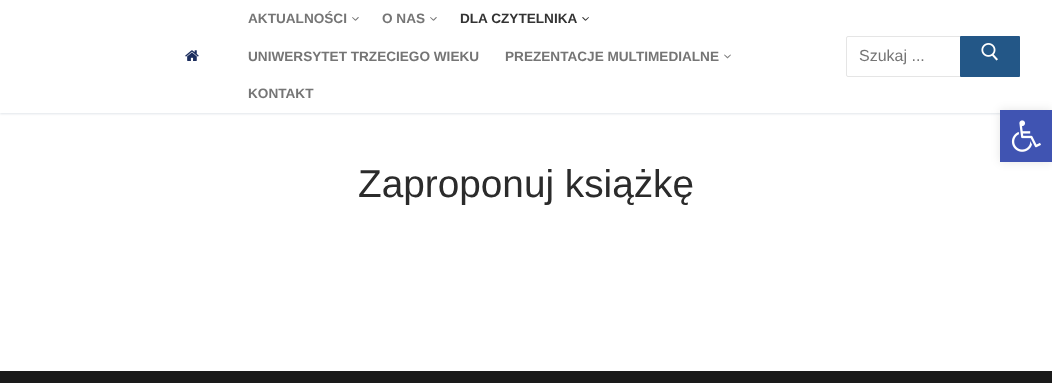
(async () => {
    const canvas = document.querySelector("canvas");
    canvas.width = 1052;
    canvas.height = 383;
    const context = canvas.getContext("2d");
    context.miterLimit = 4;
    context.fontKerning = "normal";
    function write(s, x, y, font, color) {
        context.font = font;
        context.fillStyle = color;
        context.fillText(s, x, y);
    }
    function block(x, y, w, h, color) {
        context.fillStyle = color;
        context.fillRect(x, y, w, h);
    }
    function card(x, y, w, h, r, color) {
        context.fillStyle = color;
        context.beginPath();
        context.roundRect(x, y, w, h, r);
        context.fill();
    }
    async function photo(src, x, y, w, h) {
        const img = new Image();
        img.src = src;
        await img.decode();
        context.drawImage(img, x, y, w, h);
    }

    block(0, 0, 1052, 383, "rgb(255, 255, 255)");
    context.save();
    context.beginPath();
    context.rect(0, 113, 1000, 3);
    context.clip();
    context.fillStyle = "rgb(225, 229, 234)";
    context.filter = "blur(1px)";
    context.beginPath();
    context.rect(0, 1, 1052, 113);
    context.fill();
    context.filter = "none";
    context.restore();
    await photo("media/1.png", 185, 50, 14, 11);
    write("AKTUALNOŚCI", 248, 23, "bold 13.6px Liberation Sans", "rgb(117, 117, 117)");
    context.fillStyle = "rgb(115, 115, 115)";
    context.beginPath();
    context.moveTo(355.5, 21);
    context.lineTo(352, 17.5);
    context.lineTo(352.5, 17);
    context.lineTo(355.5, 19.5);
    context.closePath();
    context.fill();
    context.beginPath();
    context.moveTo(359, 17.5);
    context.lineTo(355.5, 21);
    context.lineTo(355.5, 19.5);
    context.lineTo(358, 17);
    context.closePath();
    context.fill();
    write("O NAS", 382, 23, "bold 13.6px Liberation Sans", "rgb(117, 117, 117)");
    context.fillStyle = "rgb(115, 115, 115)";
    context.beginPath();
    context.moveTo(433.5, 21);
    context.lineTo(430, 17.5);
    context.lineTo(430.5, 17);
    context.lineTo(433.5, 19.5);
    context.closePath();
    context.fill();
    context.beginPath();
    context.moveTo(437, 17.5);
    context.lineTo(433.5, 21);
    context.lineTo(433.5, 19.5);
    context.lineTo(436, 17);
    context.closePath();
    context.fill();
    write("DLA CZYTELNIKA", 460, 23, "bold 13.6px Liberation Sans", "rgb(51, 51, 51)");
    context.beginPath();
    context.moveTo(585.5, 21);
    context.lineTo(582, 17.5);
    context.lineTo(583, 17);
    context.lineTo(585.5, 19.5);
    context.closePath();
    context.fill();
    context.beginPath();
    context.moveTo(589, 17.5);
    context.lineTo(585.5, 21);
    context.lineTo(585.5, 19.5);
    context.lineTo(588.5, 17);
    context.closePath();
    context.fill();
    write("UNIWERSYTET TRZECIEGO WIEKU", 248, 61, "bold 13.6px Liberation Sans", "rgb(117, 117, 117)");
    write("PREZENTACJE MULTIMEDIALNE", 505, 61, "bold 13.6px Liberation Sans", "rgb(117, 117, 117)");
    context.fillStyle = "rgb(115, 115, 115)";
    context.beginPath();
    context.moveTo(727.5, 58.5);
    context.lineTo(724, 55);
    context.lineTo(724.5, 54.5);
    context.lineTo(727.5, 57);
    context.closePath();
    context.fill();
    context.fillStyle = "rgba(0, 0, 0, 0.55)";
    context.beginPath();
    context.moveTo(731, 55);
    context.lineTo(727.5, 58.5);
    context.lineTo(727.5, 57);
    context.lineTo(730.5, 54.5);
    context.closePath();
    context.fill();
    write("KONTAKT", 248, 98, "bold 13.6px Liberation Sans", "rgb(117, 117, 117)");
    context.beginPath();
    context.roundRect(846.5, 36.5, 162, 40, 1.5);
    context.strokeStyle = "rgb(229, 229, 229)";
    context.stroke();
    write("Szukaj ...", 859, 61, "16px Liberation Sans", "rgb(117, 117, 117)");
    card(960, 36, 60, 41, 1, "rgb(35, 87, 135)");
    await photo("media/2.png", 981, 43, 17, 18);
    write("Zaproponuj książkę", 358, 197, "38.75px Liberation Sans", "rgb(43, 43, 43)");
    block(0, 371, 1052, 12, "rgb(26, 26, 26)");
    context.fillStyle = "rgba(0, 0, 0, 0.1)";
    context.filter = "blur(5px)";
    context.beginPath();
    context.rect(1000, 110, 52, 52);
    context.fill();
    context.filter = "none";
    block(1000, 110, 52, 52, "rgb(64, 84, 178)");
    await photo("media/3.png", 1011, 120, 30, 32);
})();
